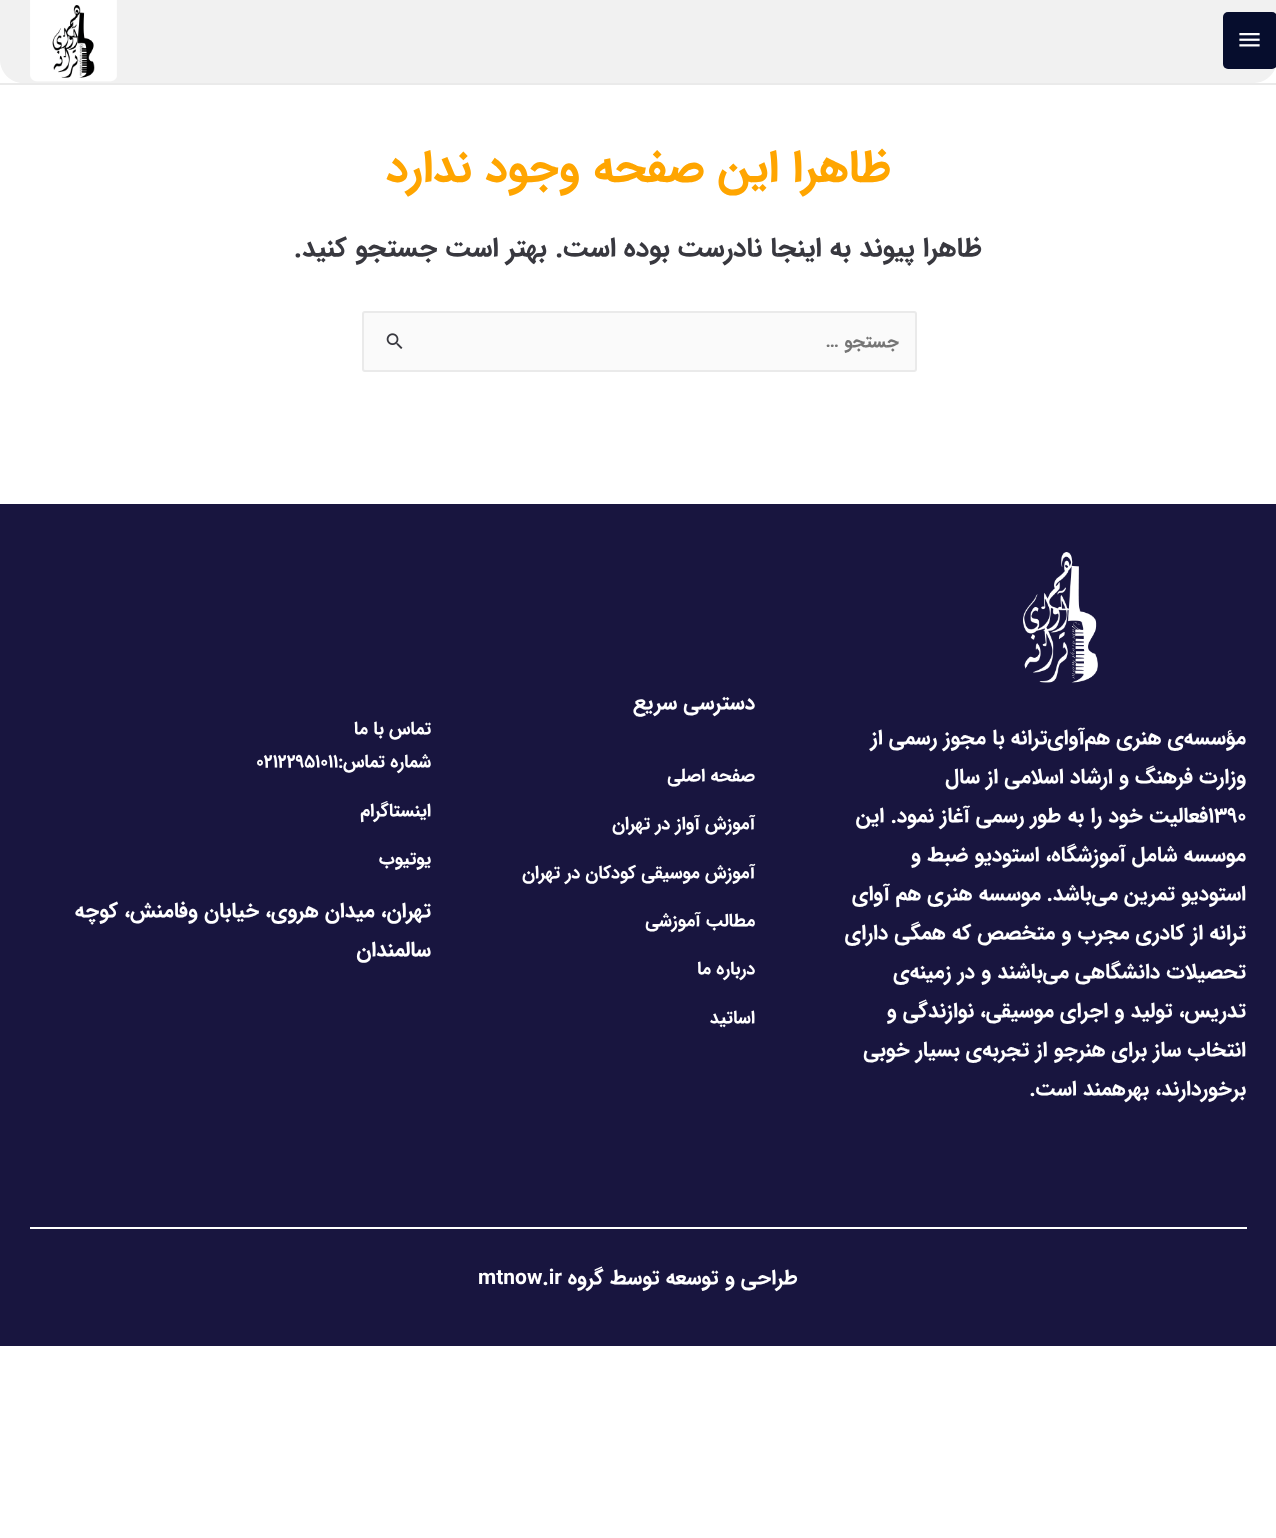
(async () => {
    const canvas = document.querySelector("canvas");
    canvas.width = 1276;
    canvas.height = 1538;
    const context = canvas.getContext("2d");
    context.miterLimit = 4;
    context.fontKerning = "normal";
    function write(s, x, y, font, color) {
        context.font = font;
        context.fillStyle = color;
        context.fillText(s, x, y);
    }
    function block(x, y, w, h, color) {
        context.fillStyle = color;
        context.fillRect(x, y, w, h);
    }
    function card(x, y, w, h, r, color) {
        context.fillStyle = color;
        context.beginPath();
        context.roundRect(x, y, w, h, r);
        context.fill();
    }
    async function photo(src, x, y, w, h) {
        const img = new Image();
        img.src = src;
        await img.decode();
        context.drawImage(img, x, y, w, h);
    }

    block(0, 0, 1276, 1538, "rgb(255, 255, 255)");
    block(0, 83, 1276, 2, "rgb(234, 234, 234)");
    context.fillStyle = "rgb(241, 241, 241)";
    context.beginPath();
    context.moveTo(0, 0);
    context.lineTo(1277, 0);
    context.lineTo(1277, 60);
    context.bezierCurveTo(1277, 72.5, 1266.5, 83, 1254, 83);
    context.lineTo(23, 83);
    context.bezierCurveTo(10.5, 83, 0, 72.5, 0, 60);
    context.closePath();
    context.fill();
    card(1223, 12, 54, 57, 5, "rgb(6, 13, 45)");
    await photo("media/1.png", 1239, 33, 21, 14);
    await photo("media/2.png", 30, 0, 87, 82);
    context.direction = "rtl";
    write("ظاهرا این صفحه وجود ندارد", 891, 181, "bold 45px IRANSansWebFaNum", "rgb(255, 165, 0)");
    write("ظاهرا پیوند به اینجا نادرست بوده است. بهتر است جستجو کنید.", 982, 256, "bold 27px IRANSansWebFaNum", "rgb(56, 56, 63)");
    context.fillStyle = "rgb(250, 250, 250)";
    context.beginPath();
    context.roundRect(363, 312, 553, 59, 2);
    context.fill();
    context.strokeStyle = "rgb(234, 234, 234)";
    context.lineWidth = 2;
    context.stroke();
    write("جستجو …", 899, 347, "bold 18px IRANSansWebFaNum", "rgb(117, 117, 117)");
    await photo("media/3.png", 386, 333, 17, 16);
    block(0, 504, 1276, 842, "rgb(24, 21, 63)");
    await photo("media/4.png", 1023, 552, 75, 131);
    write("مؤسسه‌ی هنری هم‌آوای‌ترانه با مجوز رسمی از", 1246, 744, "bold 21px IRANSansWebFaNum", "rgb(255, 255, 255)");
    write("وزارت فرهنگ و ارشاد اسلامی از سال", 1246, 783, "bold 21px IRANSansWebFaNum", "rgb(255, 255, 255)");
    context.direction = "ltr";
    write("1390", 1208, 822, "bold 21px IRANSansWebFaNum", "rgb(255, 255, 255)");
    context.direction = "rtl";
    write("فعالیت خود را به طور رسمی آغاز نمود. این", 1208, 822, "bold 21px IRANSansWebFaNum", "rgb(255, 255, 255)");
    write("موسسه شامل آموزشگاه، استودیو ضبط و", 1246, 861, "bold 21px IRANSansWebFaNum", "rgb(255, 255, 255)");
    write("استودیو تمرین می‌باشد.", 1246, 900, "bold 21px IRANSansWebFaNum", "rgb(255, 255, 255)");
    write("موسسه هنری هم آوای", 1041, 900, "bold 21px IRANSansWebFaNum", "rgb(255, 255, 255)");
    write("ترانه از کادری مجرب و متخصص که همگی دارای", 1246, 939, "bold 21px IRANSansWebFaNum", "rgb(255, 255, 255)");
    write("تحصیلات دانشگاهی می‌باشند و در زمینه‌ی", 1246, 978, "bold 21px IRANSansWebFaNum", "rgb(255, 255, 255)");
    write("تدریس، تولید و اجرای موسیقی، نوازندگی و", 1246, 1017, "bold 21px IRANSansWebFaNum", "rgb(255, 255, 255)");
    write("انتخاب ساز برای هنرجو از تجربه‌ی بسیار خوبی", 1246, 1056, "bold 21px IRANSansWebFaNum", "rgb(255, 255, 255)");
    write("بر‌خوردارند، بهرهمند است.", 1246, 1095, "bold 21px IRANSansWebFaNum", "rgb(255, 255, 255)");
    write("دسترسی سریع", 755, 709, "bold 21px IRANSansWebFaNum", "rgb(255, 255, 255)");
    write("صفحه اصلی", 755, 781, "bold 18px IRANSansWebFaNum", "rgb(255, 255, 255)");
    write("آموزش آواز در تهران", 755, 829, "bold 18px IRANSansWebFaNum", "rgb(255, 255, 255)");
    write("آموزش موسیقی کودکان در تهران", 755, 878, "bold 18px IRANSansWebFaNum", "rgb(255, 255, 255)");
    write("مطالب آموزشی", 755, 926, "bold 18px IRANSansWebFaNum", "rgb(255, 255, 255)");
    write("درباره ما", 755, 974, "bold 18px IRANSansWebFaNum", "rgb(255, 255, 255)");
    write("اساتید", 755, 1023, "bold 18px IRANSansWebFaNum", "rgb(255, 255, 255)");
    write("تماس با ما", 431, 734, "bold 18px IRANSansWebFaNum", "rgb(255, 255, 255)");
    write("شماره تماس:", 431, 767, "bold 18px IRANSansWebFaNum", "rgb(255, 255, 255)");
    context.direction = "ltr";
    write("02122951011", 256, 767, "bold 18px IRANSansWebFaNum", "rgb(255, 255, 255)");
    context.direction = "rtl";
    write("اینستاگرام", 431, 816, "bold 18px IRANSansWebFaNum", "rgb(255, 255, 255)");
    write("یوتیوب", 431, 864, "bold 18px IRANSansWebFaNum", "rgb(255, 255, 255)");
    write("تهران، میدان هروی، خیابان وفامنش، کوچه", 431, 917, "bold 21px IRANSansWebFaNum", "rgb(255, 255, 255)");
    write("سالمندان", 431, 956, "bold 21px IRANSansWebFaNum", "rgb(255, 255, 255)");
    block(30, 1227, 1217, 2, "rgb(255, 255, 255)");
    write("طراحی و توسعه توسط گروه", 798, 1284, "bold 21px IRANSansWebFaNum", "rgb(255, 255, 255)");
    context.direction = "ltr";
    write("mtnow.ir", 478, 1284, "bold 21px IRANSansWebFaNum", "rgb(255, 255, 255)");
})();
